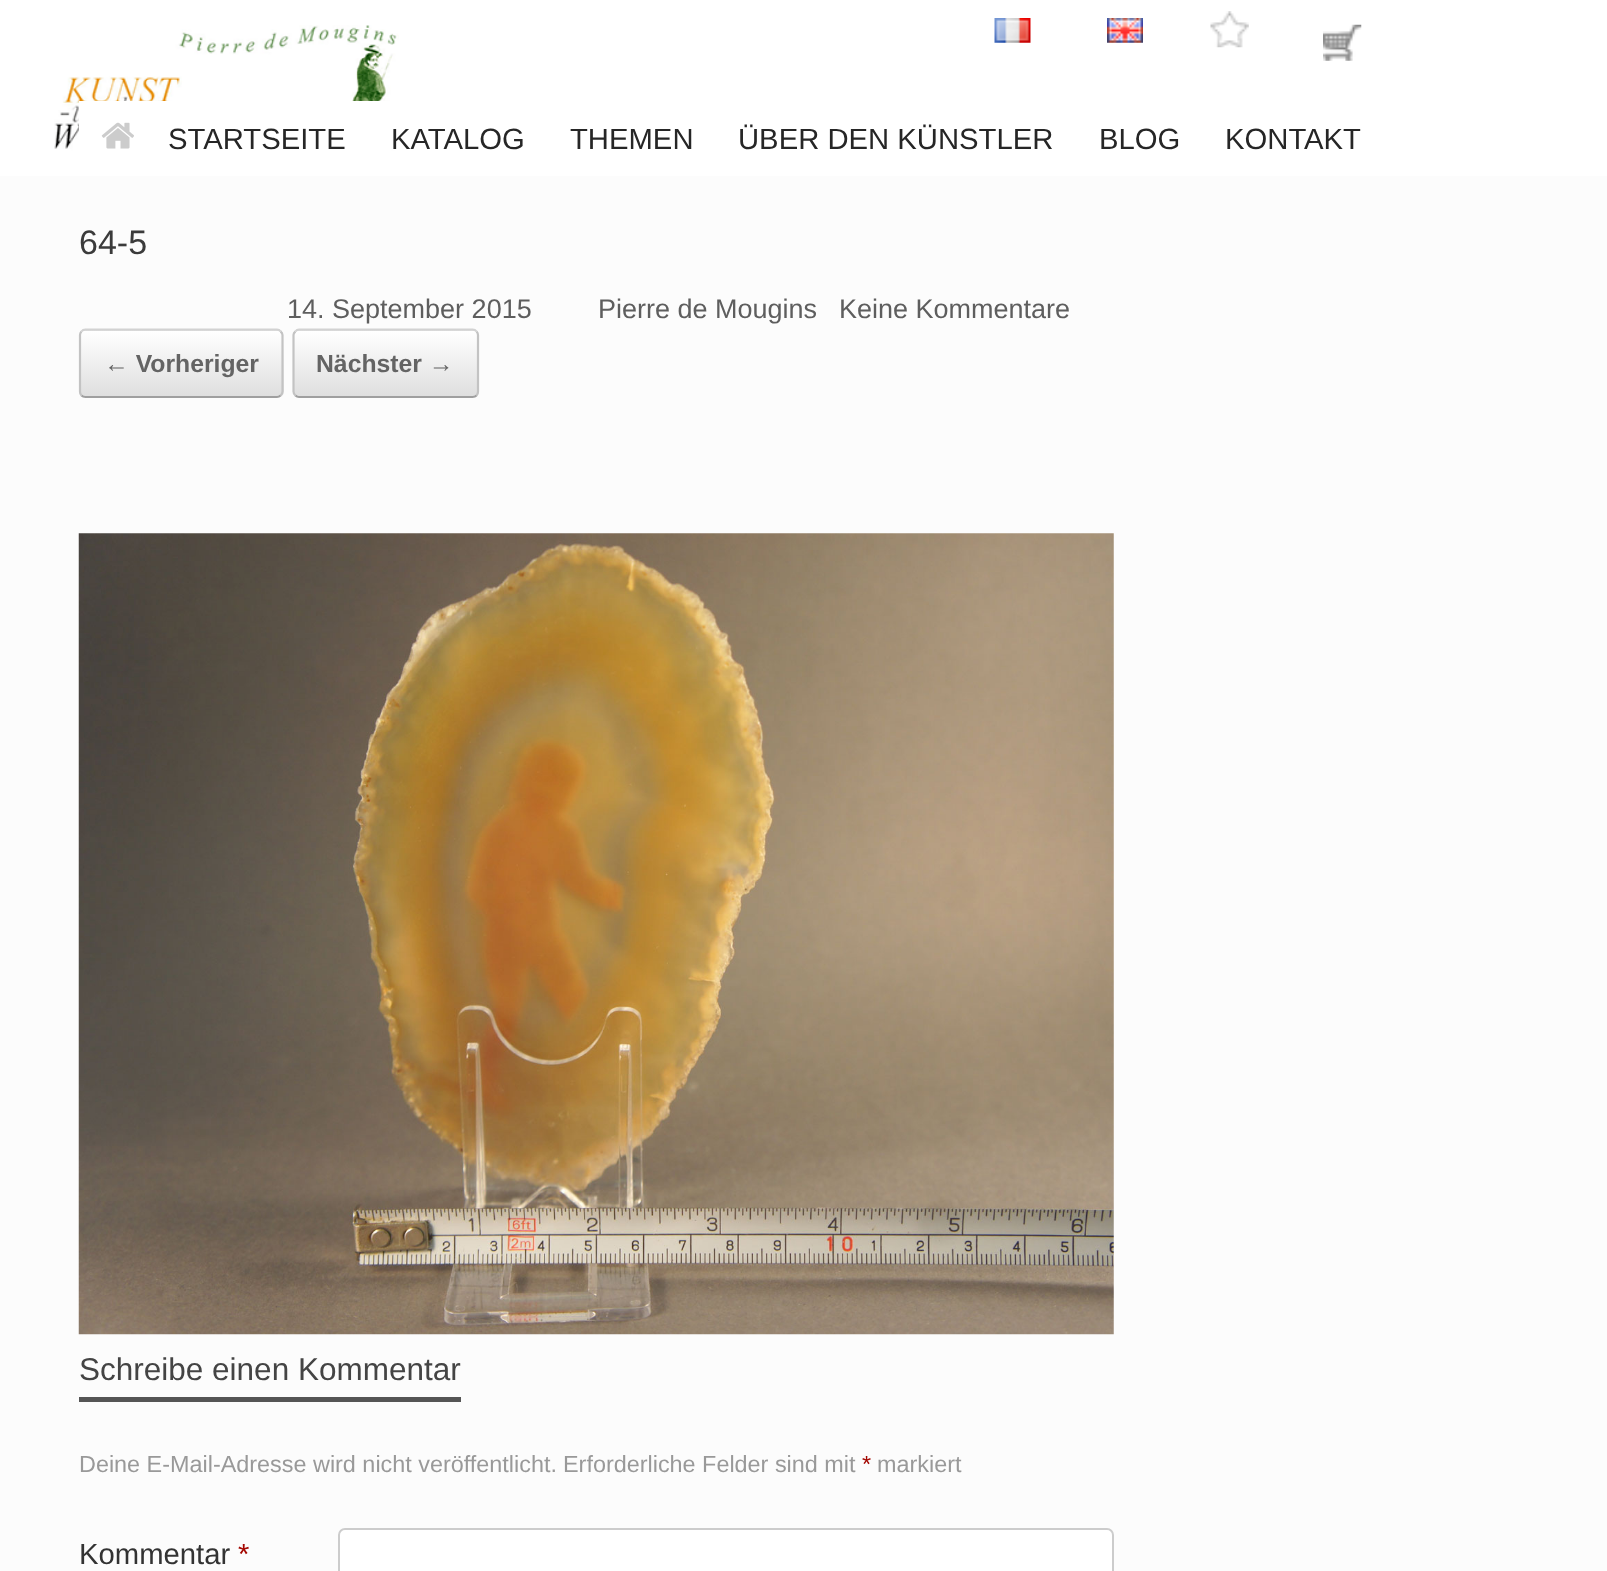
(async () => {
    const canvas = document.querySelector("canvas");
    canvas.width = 1607;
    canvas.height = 1571;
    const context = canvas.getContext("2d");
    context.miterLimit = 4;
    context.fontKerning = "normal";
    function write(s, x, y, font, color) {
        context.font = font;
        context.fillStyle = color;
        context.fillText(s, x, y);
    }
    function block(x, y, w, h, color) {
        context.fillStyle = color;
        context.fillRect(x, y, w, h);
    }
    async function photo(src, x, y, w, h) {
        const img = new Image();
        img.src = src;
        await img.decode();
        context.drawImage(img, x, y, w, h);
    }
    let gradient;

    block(0, 0, 1607, 1571, "rgb(252, 252, 252)");
    block(0, 0, 1607, 176, "rgb(255, 255, 255)");
    await photo("media/1.png", 54, 25, 345, 134);
    block(79, 101, 312, 58, "rgb(255, 255, 255)");
    await photo("media/2.png", 994, 18, 37, 25);
    await photo("media/3.png", 1107, 18, 36, 25);
    await photo("media/4.png", 1210, 11, 39, 37);
    await photo("media/5.png", 1323, 24, 39, 37);
    await photo("media/6.png", 101, 122, 33, 27);
    write("STARTSEITE", 168, 149, "29.25px Liberation Sans", "rgb(38, 38, 38)");
    write("KATALOG", 391, 149, "29.25px Liberation Sans", "rgb(38, 38, 38)");
    write("THEMEN", 570, 149, "29.25px Liberation Sans", "rgb(38, 38, 38)");
    write("ÜBER DEN KÜNSTLER", 738, 149, "29.25px Liberation Sans", "rgb(38, 38, 38)");
    write("BLOG", 1099, 149, "29.25px Liberation Sans", "rgb(38, 38, 38)");
    write("KONTAKT", 1225, 149, "29.25px Liberation Sans", "rgb(38, 38, 38)");
    write("64-5", 79, 254, "34px Liberation Sans", "rgb(59, 59, 59)");
    write("14. September 2015", 287, 318, "27px Liberation Sans", "rgb(94, 94, 94)");
    write("Pierre de Mougins", 598, 318, "27px Liberation Sans", "rgb(94, 94, 94)");
    write("Keine Kommentare", 839, 318, "27px Liberation Sans", "rgb(94, 94, 94)");
    context.save();
    context.beginPath();
    context.roundRect(79, 329, 205, 69, 7);
    context.clip();
    gradient = context.createLinearGradient(81, 331, 81, 266);
    gradient.addColorStop(0, "rgb(223, 223, 223)");
    gradient.addColorStop(1, "rgb(255, 255, 255)");
    context.fillStyle = gradient;
    context.fillRect(79, 329, 205, 2);
    gradient = context.createLinearGradient(81, 396, 81, 331);
    gradient.addColorStop(0, "rgb(223, 223, 223)");
    gradient.addColorStop(1, "rgb(255, 255, 255)");
    context.fillStyle = gradient;
    context.fillRect(79, 331, 205, 65);
    context.restore();
    context.beginPath();
    context.moveTo(81.5, 331.5);
    context.bezierCurveTo(82.5, 330, 84, 329.5, 85.5, 329.5);
    context.lineTo(277, 329.5);
    context.bezierCurveTo(278, 329.5, 279.5, 330, 280.5, 331.5);
    context.strokeStyle = "rgb(210, 210, 210)";
    context.lineWidth = 2.2;
    context.stroke();
    context.beginPath();
    context.moveTo(280.5, 331.5);
    context.bezierCurveTo(282, 332.5, 282.5, 334, 282.5, 335);
    context.lineTo(282.5, 391.5);
    context.bezierCurveTo(282.5, 393, 282, 394.5, 280.5, 395.5);
    context.strokeStyle = "rgb(195, 195, 195)";
    context.stroke();
    context.beginPath();
    context.moveTo(280.5, 395.5);
    context.bezierCurveTo(279.5, 396.5, 278, 397, 277, 397);
    context.lineTo(85.5, 397);
    context.bezierCurveTo(84, 397, 82.5, 396.5, 81.5, 395.5);
    context.strokeStyle = "rgb(159, 159, 159)";
    context.stroke();
    context.beginPath();
    context.moveTo(81.5, 395.5);
    context.bezierCurveTo(80.5, 394.5, 80, 393, 80, 391.5);
    context.lineTo(80, 335);
    context.bezierCurveTo(80, 334, 80.5, 332.5, 81.5, 331.5);
    context.strokeStyle = "rgb(195, 195, 195)";
    context.stroke();
    write("← Vorheriger", 104, 372, "bold 24.75px Liberation Sans", "rgb(100, 100, 100)");
    context.save();
    context.beginPath();
    context.roundRect(293, 329, 186, 69, 7);
    context.clip();
    gradient = context.createLinearGradient(295, 331, 295, 266);
    gradient.addColorStop(0, "rgb(223, 223, 223)");
    gradient.addColorStop(1, "rgb(255, 255, 255)");
    context.fillStyle = gradient;
    context.fillRect(293, 329, 186, 2);
    gradient = context.createLinearGradient(295, 396, 295, 331);
    gradient.addColorStop(0, "rgb(223, 223, 223)");
    gradient.addColorStop(1, "rgb(255, 255, 255)");
    context.fillStyle = gradient;
    context.fillRect(293, 331, 186, 65);
    context.restore();
    context.beginPath();
    context.moveTo(295.5, 331.5);
    context.bezierCurveTo(296.5, 330, 298, 329.5, 299, 329.5);
    context.lineTo(472.5, 329.5);
    context.bezierCurveTo(474, 329.5, 475.5, 330, 476.5, 331.5);
    context.strokeStyle = "rgb(210, 210, 210)";
    context.stroke();
    context.beginPath();
    context.moveTo(476.5, 331.5);
    context.bezierCurveTo(477.5, 332.5, 478, 334, 478, 335);
    context.lineTo(478, 391.5);
    context.bezierCurveTo(478, 393, 477.5, 394.5, 476.5, 395.5);
    context.strokeStyle = "rgb(195, 195, 195)";
    context.stroke();
    context.beginPath();
    context.moveTo(476.5, 395.5);
    context.bezierCurveTo(475.5, 396.5, 474, 397, 472.5, 397);
    context.lineTo(299, 397);
    context.bezierCurveTo(298, 397, 296.5, 396.5, 295.5, 395.5);
    context.strokeStyle = "rgb(159, 159, 159)";
    context.stroke();
    context.beginPath();
    context.moveTo(295.5, 395.5);
    context.bezierCurveTo(294, 394.5, 293.5, 393, 293.5, 391.5);
    context.lineTo(293.5, 335);
    context.bezierCurveTo(293.5, 334, 294, 332.5, 295.5, 331.5);
    context.strokeStyle = "rgb(195, 195, 195)";
    context.stroke();
    write("Nächster →", 316, 372, "bold 24.75px Liberation Sans", "rgb(100, 100, 100)");
    await photo("media/7.png", 78, 533, 1036, 802);
    block(79, 1397, 382, 5, "rgb(85, 85, 85)");
    write("Schreibe einen Kommentar", 79, 1380, "31.5px Liberation Sans", "rgb(68, 68, 68)");
    write("Deine E-Mail-Adresse wird nicht veröffentlicht.", 79, 1472, "23.4px Liberation Sans", "rgb(153, 153, 153)");
    write("Erforderliche Felder sind mit", 563, 1472, "23.4px Liberation Sans", "rgb(153, 153, 153)");
    write("*", 862, 1472, "23.4px Liberation Sans", "rgb(164, 8, 2)");
    write("markiert", 877, 1472, "23.4px Liberation Sans", "rgb(153, 153, 153)");
    write("Kommentar", 79, 1564, "29.25px Liberation Sans", "rgb(51, 51, 51)");
    write("*", 238, 1564, "29.25px Liberation Sans", "rgb(164, 8, 2)");
    context.fillStyle = "rgb(255, 255, 255)";
    context.beginPath();
    context.roundRect(339, 1529, 774, 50, 6);
    context.fill();
    context.strokeStyle = "rgb(204, 204, 204)";
    context.lineWidth = 2;
    context.stroke();
})();
